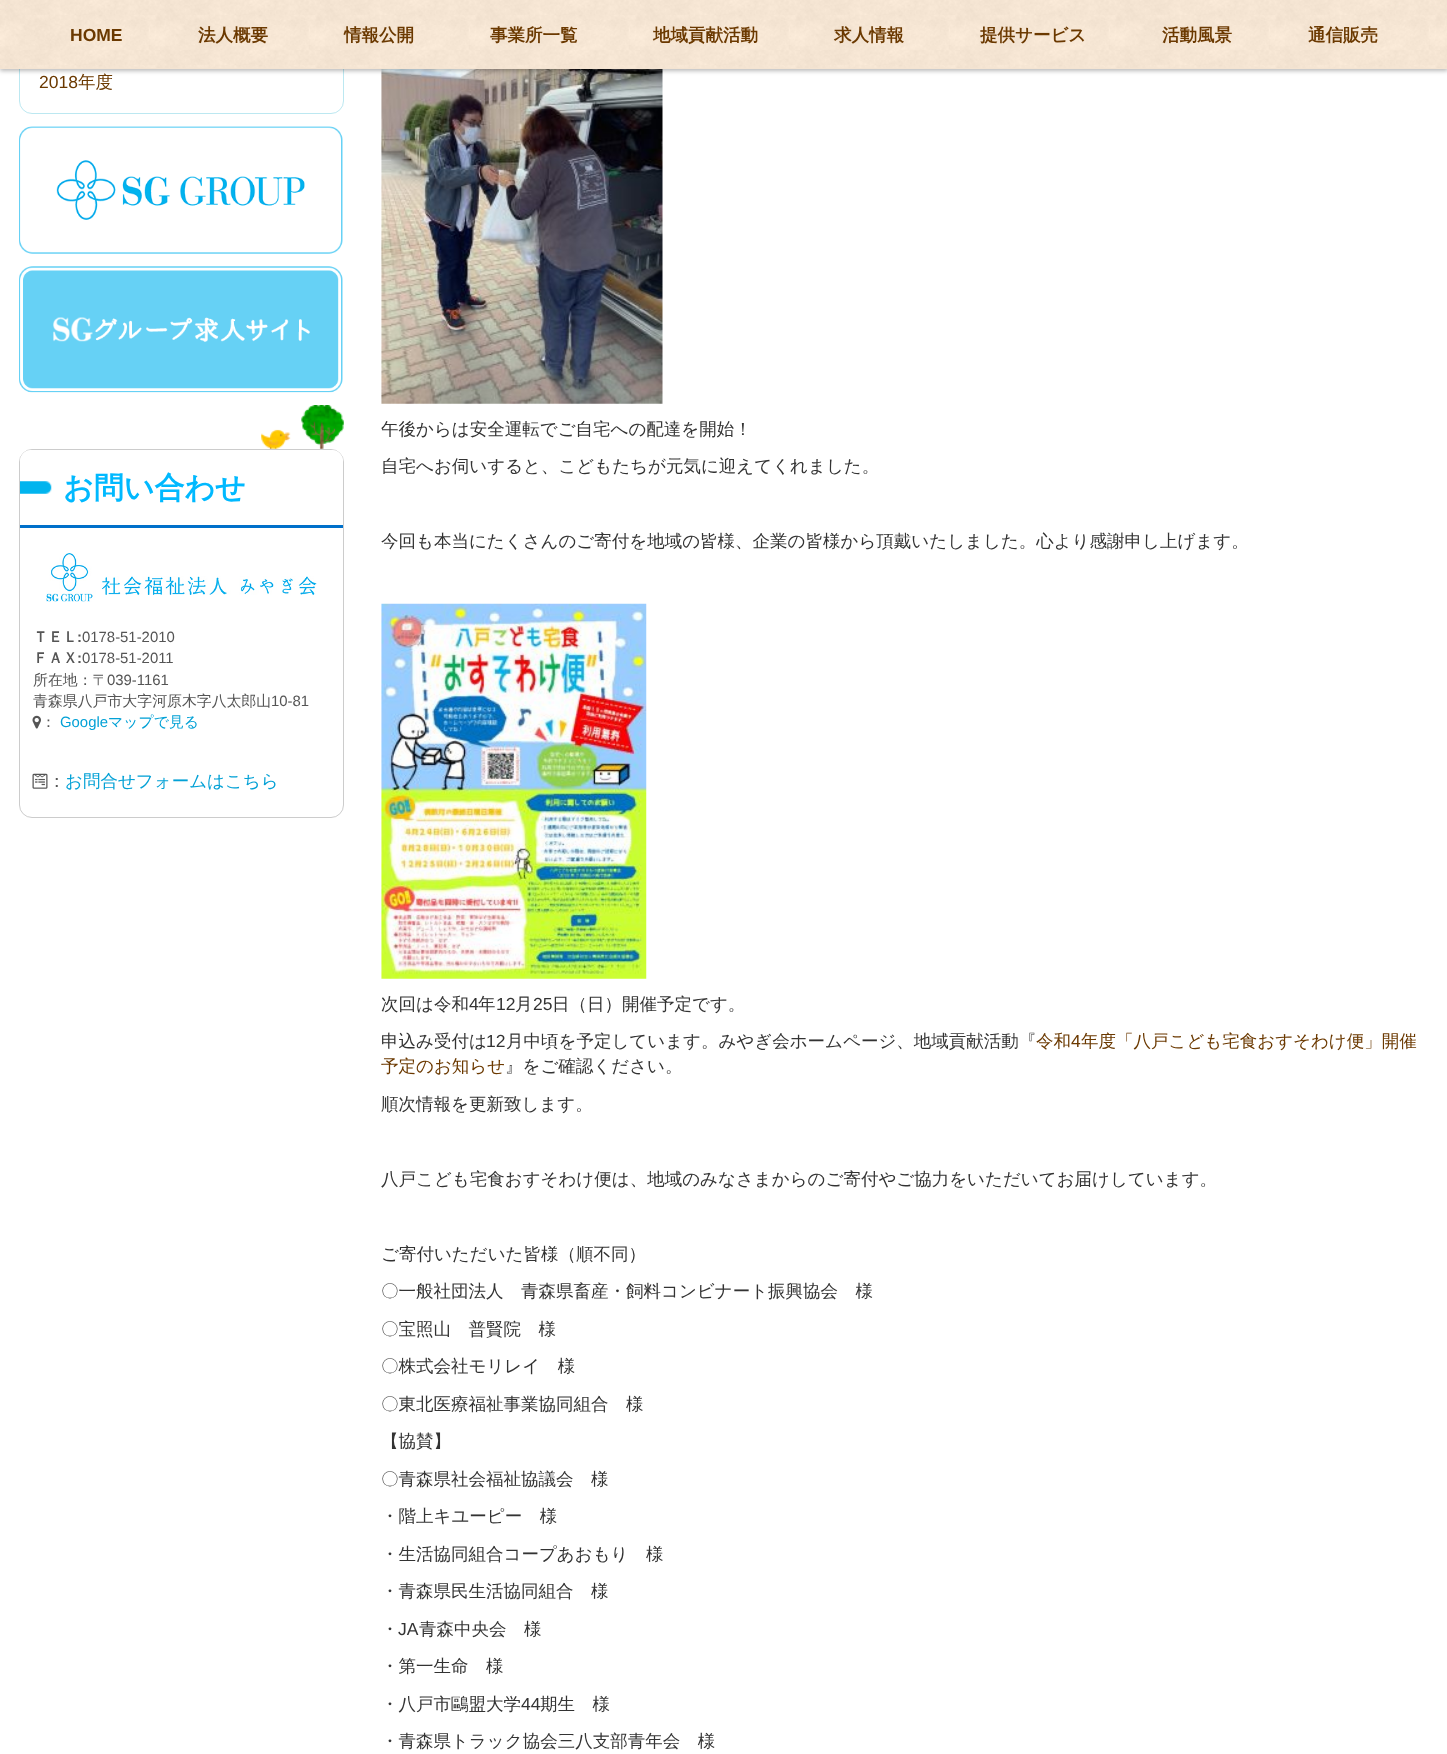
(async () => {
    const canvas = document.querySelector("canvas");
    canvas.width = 1447;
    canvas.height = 1754;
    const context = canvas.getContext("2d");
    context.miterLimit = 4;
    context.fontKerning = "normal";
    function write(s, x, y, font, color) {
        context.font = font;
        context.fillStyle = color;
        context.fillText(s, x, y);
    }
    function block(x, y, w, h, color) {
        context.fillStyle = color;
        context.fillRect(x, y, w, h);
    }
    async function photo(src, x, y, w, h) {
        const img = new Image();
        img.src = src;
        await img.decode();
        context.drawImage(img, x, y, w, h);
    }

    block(0, 0, 1447, 1754, "rgb(255, 255, 255)");
    context.beginPath();
    context.roundRect(19.5, -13.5, 324, 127, 12.5);
    context.strokeStyle = "rgb(188, 232, 241)";
    context.stroke();
    await photo("media/9.png", 381, 69, 282, 335);
    context.fillStyle = "rgba(0, 0, 0, 0.27)";
    context.filter = "blur(2px)";
    context.beginPath();
    context.rect(0, 3, 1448, 68);
    context.fill();
    context.filter = "none";
    block(0, 68, 1447, 1, "rgb(244, 228, 210)");
    await photo("media/1.png", 0, 0, 1447, 68);
    write("HOME", 70, 41, "bold 17.5px Liberation Sans", "rgb(107, 57, 0)");
    write("法人概要", 198, 41, "bold 17.5px WenQuanYi Zen Hei", "rgb(107, 57, 0)");
    write("情報公開", 344, 41, "bold 17.5px WenQuanYi Zen Hei", "rgb(107, 57, 0)");
    write("事業所一覧", 490, 41, "bold 17.5px WenQuanYi Zen Hei", "rgb(107, 57, 0)");
    write("地域貢献活動", 653, 41, "bold 17.5px WenQuanYi Zen Hei", "rgb(107, 57, 0)");
    write("求人情報", 834, 41, "bold 17.5px WenQuanYi Zen Hei", "rgb(107, 57, 0)");
    write("提供サービス", 980, 41, "bold 17.5px WenQuanYi Zen Hei", "rgb(107, 57, 0)");
    write("活動風景", 1162, 41, "bold 17.5px WenQuanYi Zen Hei", "rgb(107, 57, 0)");
    write("通信販売", 1308, 41, "bold 17.5px WenQuanYi Zen Hei", "rgb(107, 57, 0)");
    write("2018", 39, 88, "17.5px Liberation Sans", "rgb(107, 57, 0)");
    write("年度", 78, 88, "500 17.5px WenQuanYi Zen Hei", "rgb(107, 57, 0)");
    await photo("media/2.png", 19, 126, 324, 128);
    await photo("media/3.png", 19, 266, 324, 127);
    await photo("media/4.png", 261, 405, 83, 44);
    context.beginPath();
    context.roundRect(19.5, 449.5, 324, 368, 12.5);
    context.strokeStyle = "rgb(204, 204, 204)";
    context.stroke();
    context.fillStyle = "rgb(255, 255, 255)";
    context.beginPath();
    context.roundRect(20, 450, 323, 78, [11, 11, 0, 0]);
    context.fill();
    await photo("media/5.png", 20, 481, 32, 13);
    block(20, 525, 323, 3, "rgb(0, 112, 202)");
    write("お問い合わせ", 63, 498, "bold 30px WenQuanYi Zen Hei", "rgb(0, 185, 255)");
    await photo("media/6.png", 46, 553, 271, 49);
    write("ＴＥＬ", 33, 642, "bold 14.9px WenQuanYi Zen Hei", "rgb(85, 85, 85)");
    write(":", 77, 642, "bold 14.9px Liberation Sans", "rgb(85, 85, 85)");
    write("0178-51-2010", 82, 642, "14.9px Liberation Sans", "rgb(85, 85, 85)");
    write("ＦＡＸ", 33, 663, "bold 14.9px WenQuanYi Zen Hei", "rgb(85, 85, 85)");
    write(":", 77, 663, "bold 14.9px Liberation Sans", "rgb(85, 85, 85)");
    write("0178-51-2011", 82, 663, "14.9px Liberation Sans", "rgb(85, 85, 85)");
    write("所在地：〒", 33, 685, "500 14.9px WenQuanYi Zen Hei", "rgb(85, 85, 85)");
    write("039-1161", 107, 685, "14.9px Liberation Sans", "rgb(85, 85, 85)");
    write("青森県八戸市大字河原木字八太郎山", 33, 706, "500 14.9px WenQuanYi Zen Hei", "rgb(85, 85, 85)");
    write("10-81", 271, 706, "14.9px Liberation Sans", "rgb(85, 85, 85)");
    await photo("media/7.png", 32, 715, 9, 14);
    write("：", 41, 727, "500 14.9px WenQuanYi Zen Hei", "rgb(85, 85, 85)");
    write("Google", 60, 727, "14.9px Liberation Sans", "rgb(3, 161, 214)");
    write("マップで見る", 108, 727, "500 14.9px WenQuanYi Zen Hei", "rgb(3, 161, 214)");
    await photo("media/8.png", 32, 773, 16, 16);
    write("：", 48, 787, "500 17.5px WenQuanYi Zen Hei", "rgb(85, 85, 85)");
    write("お問合せフォームはこちら", 65, 787, "500 17.5px WenQuanYi Zen Hei", "rgb(3, 161, 214)");
    write("午後からは安全運転でご自宅への配達を開始！", 381, 435, "500 17.5px WenQuanYi Zen Hei", "rgb(51, 51, 51)");
    write("自宅へお伺いすると、こどもたちが元気に迎えてくれました。", 381, 472, "500 17.5px WenQuanYi Zen Hei", "rgb(51, 51, 51)");
    write("今回も本当にたくさんのご寄付を地域の皆様、企業の皆様から頂戴いたしました。心より感謝申し上げます。", 381, 547, "500 17.5px WenQuanYi Zen Hei", "rgb(51, 51, 51)");
    await photo("media/10.png", 381, 603, 266, 376);
    write("次回は令和", 381, 1010, "500 17.5px WenQuanYi Zen Hei", "rgb(51, 51, 51)");
    write("4", 469, 1010, "17.5px Liberation Sans", "rgb(51, 51, 51)");
    write("年", 478, 1010, "500 17.5px WenQuanYi Zen Hei", "rgb(51, 51, 51)");
    write("12", 496, 1010, "17.5px Liberation Sans", "rgb(51, 51, 51)");
    write("月", 515, 1010, "500 17.5px WenQuanYi Zen Hei", "rgb(51, 51, 51)");
    write("25", 533, 1010, "17.5px Liberation Sans", "rgb(51, 51, 51)");
    write("日（日）開催予定です。", 552, 1010, "500 17.5px WenQuanYi Zen Hei", "rgb(51, 51, 51)");
    write("申込み受付は", 381, 1047, "500 17.5px WenQuanYi Zen Hei", "rgb(51, 51, 51)");
    write("12", 486, 1047, "17.5px Liberation Sans", "rgb(51, 51, 51)");
    write("月中頃を予定しています。みやぎ会ホームページ、地域貢献活動『", 506, 1047, "500 17.5px WenQuanYi Zen Hei", "rgb(51, 51, 51)");
    write("令和", 1036, 1047, "500 17.5px WenQuanYi Zen Hei", "rgb(107, 57, 0)");
    write("4", 1071, 1047, "17.5px Liberation Sans", "rgb(107, 57, 0)");
    write("年度「八戸こども宅食おすそわけ便」開催", 1081, 1047, "500 17.5px WenQuanYi Zen Hei", "rgb(107, 57, 0)");
    write("予定のお知らせ", 381, 1072, "500 17.5px WenQuanYi Zen Hei", "rgb(107, 57, 0)");
    write("』をご確認ください。", 505, 1072, "500 17.5px WenQuanYi Zen Hei", "rgb(51, 51, 51)");
    write("順次情報を更新致します。", 381, 1110, "500 17.5px WenQuanYi Zen Hei", "rgb(51, 51, 51)");
    write("八戸こども宅食おすそわけ便は、地域のみなさまからのご寄付やご協力をいただいてお届けしています。", 381, 1185, "500 17.5px WenQuanYi Zen Hei", "rgb(51, 51, 51)");
    write("ご寄付いただいた皆様（順不同）", 381, 1260, "500 17.5px WenQuanYi Zen Hei", "rgb(51, 51, 51)");
    write("〇一般社団法人　青森県畜産・飼料コンビナート振興協会　様", 381, 1297, "500 17.5px WenQuanYi Zen Hei", "rgb(51, 51, 51)");
    write("〇宝照山　普賢院　様", 381, 1335, "500 17.5px WenQuanYi Zen Hei", "rgb(51, 51, 51)");
    write("〇株式会社モリレイ　様", 381, 1372, "500 17.5px WenQuanYi Zen Hei", "rgb(51, 51, 51)");
    write("〇東北医療福祉事業協同組合　様", 381, 1410, "500 17.5px WenQuanYi Zen Hei", "rgb(51, 51, 51)");
    write("【協賛】", 381, 1447, "500 17.5px WenQuanYi Zen Hei", "rgb(51, 51, 51)");
    write("〇青森県社会福祉協議会　様", 381, 1485, "500 17.5px WenQuanYi Zen Hei", "rgb(51, 51, 51)");
    write("・階上キユーピー　様", 381, 1522, "500 17.5px WenQuanYi Zen Hei", "rgb(51, 51, 51)");
    write("・生活協同組合コープあおもり　様", 381, 1560, "500 17.5px WenQuanYi Zen Hei", "rgb(51, 51, 51)");
    write("・青森県民生活協同組合　様", 381, 1597, "500 17.5px WenQuanYi Zen Hei", "rgb(51, 51, 51)");
    write("・", 381, 1635, "500 17.5px WenQuanYi Zen Hei", "rgb(51, 51, 51)");
    write("JA", 398, 1635, "17.5px Liberation Sans", "rgb(51, 51, 51)");
    write("青森中央会　様", 419, 1635, "500 17.5px WenQuanYi Zen Hei", "rgb(51, 51, 51)");
    write("・第一生命　様", 381, 1672, "500 17.5px WenQuanYi Zen Hei", "rgb(51, 51, 51)");
    write("・八戸市鷗盟大学", 381, 1710, "500 17.5px WenQuanYi Zen Hei", "rgb(51, 51, 51)");
    write("44", 521, 1710, "17.5px Liberation Sans", "rgb(51, 51, 51)");
    write("期生　様", 540, 1710, "500 17.5px WenQuanYi Zen Hei", "rgb(51, 51, 51)");
    write("・青森県トラック協会三八支部青年会　様", 381, 1747, "500 17.5px WenQuanYi Zen Hei", "rgb(51, 51, 51)");
})();
